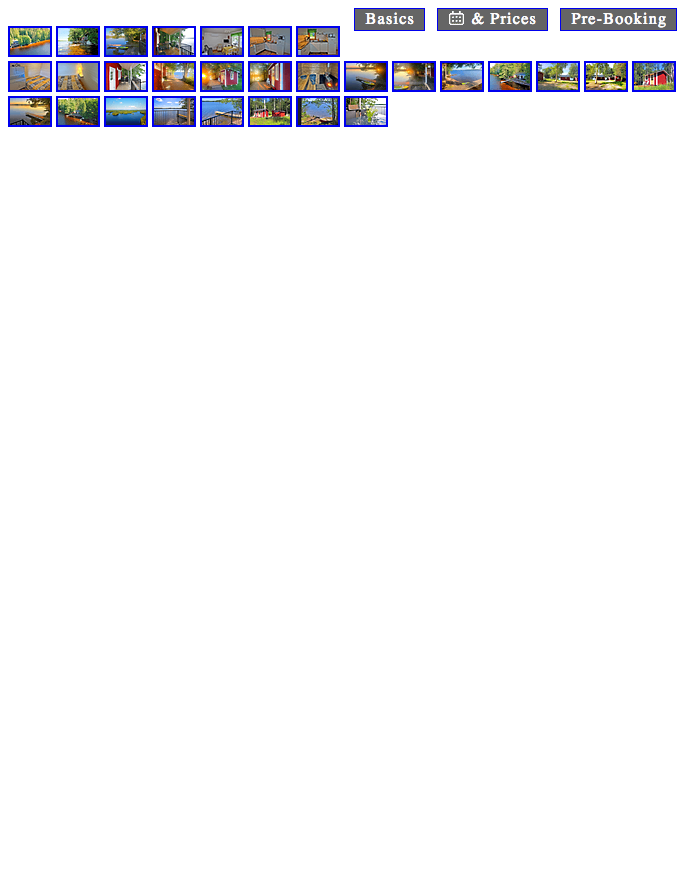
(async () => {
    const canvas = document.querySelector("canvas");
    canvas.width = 691;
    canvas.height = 894;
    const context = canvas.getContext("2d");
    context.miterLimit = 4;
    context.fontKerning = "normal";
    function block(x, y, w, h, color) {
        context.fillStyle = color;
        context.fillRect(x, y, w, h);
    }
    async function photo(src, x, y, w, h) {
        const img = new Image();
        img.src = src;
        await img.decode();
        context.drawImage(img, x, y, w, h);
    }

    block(0, 0, 691, 894, "rgb(255, 255, 255)");
    context.strokeStyle = "rgb(0, 0, 238)";
    context.strokeRect(354.5, 8.5, 70, 22);
    await photo("media/1.png", 355, 9, 69, 21);
    context.strokeRect(437.5, 8.5, 110, 22);
    await photo("media/2.png", 438, 9, 109, 21);
    context.strokeRect(560.5, 8.5, 116, 22);
    await photo("media/3.png", 561, 9, 115, 21);
    context.lineWidth = 2;
    context.strokeRect(9, 27, 42, 29);
    context.strokeRect(57, 27, 42, 29);
    context.strokeRect(105, 27, 42, 29);
    context.strokeRect(153, 27, 42, 29);
    context.strokeRect(201, 27, 42, 29);
    context.strokeRect(249, 27, 42, 29);
    context.strokeRect(297, 27, 42, 29);
    await photo("media/4.png", 10, 28, 40, 27);
    await photo("media/5.png", 58, 28, 40, 27);
    await photo("media/6.png", 106, 28, 40, 27);
    await photo("media/7.png", 154, 28, 40, 27);
    await photo("media/8.png", 202, 28, 40, 27);
    await photo("media/9.png", 250, 28, 40, 27);
    await photo("media/10.png", 298, 28, 40, 27);
    context.strokeRect(9, 62, 42, 29);
    context.strokeRect(57, 62, 42, 29);
    context.strokeRect(105, 62, 42, 29);
    context.strokeRect(153, 62, 42, 29);
    context.strokeRect(201, 62, 42, 29);
    context.strokeRect(249, 62, 42, 29);
    context.strokeRect(297, 62, 42, 29);
    context.strokeRect(345, 62, 42, 29);
    context.strokeRect(393, 62, 42, 29);
    context.strokeRect(441, 62, 42, 29);
    context.strokeRect(489, 62, 42, 29);
    context.strokeRect(537, 62, 42, 29);
    context.strokeRect(585, 62, 42, 29);
    context.strokeRect(633, 62, 42, 29);
    await photo("media/11.png", 10, 63, 40, 27);
    await photo("media/12.png", 58, 63, 40, 27);
    await photo("media/13.png", 106, 63, 40, 27);
    await photo("media/14.png", 154, 63, 40, 27);
    await photo("media/15.png", 202, 63, 40, 27);
    await photo("media/16.png", 250, 63, 40, 27);
    await photo("media/17.png", 298, 63, 40, 27);
    await photo("media/18.png", 346, 63, 40, 27);
    await photo("media/19.png", 394, 63, 40, 27);
    await photo("media/20.png", 442, 63, 40, 27);
    await photo("media/21.png", 490, 63, 40, 27);
    await photo("media/22.png", 538, 63, 40, 27);
    await photo("media/23.png", 586, 63, 40, 27);
    await photo("media/24.png", 634, 63, 40, 27);
    context.strokeRect(9, 97, 42, 29);
    context.strokeRect(57, 97, 42, 29);
    context.strokeRect(105, 97, 42, 29);
    context.strokeRect(153, 97, 42, 29);
    context.strokeRect(201, 97, 42, 29);
    context.strokeRect(249, 97, 42, 29);
    context.strokeRect(297, 97, 42, 29);
    context.strokeRect(345, 97, 42, 29);
    await photo("media/25.png", 10, 98, 40, 27);
    await photo("media/26.png", 58, 98, 40, 27);
    await photo("media/27.png", 106, 98, 40, 27);
    await photo("media/28.png", 154, 98, 40, 27);
    await photo("media/29.png", 202, 98, 40, 27);
    await photo("media/30.png", 250, 98, 40, 27);
    await photo("media/31.png", 298, 98, 40, 27);
    await photo("media/32.png", 346, 98, 40, 27);
})();
